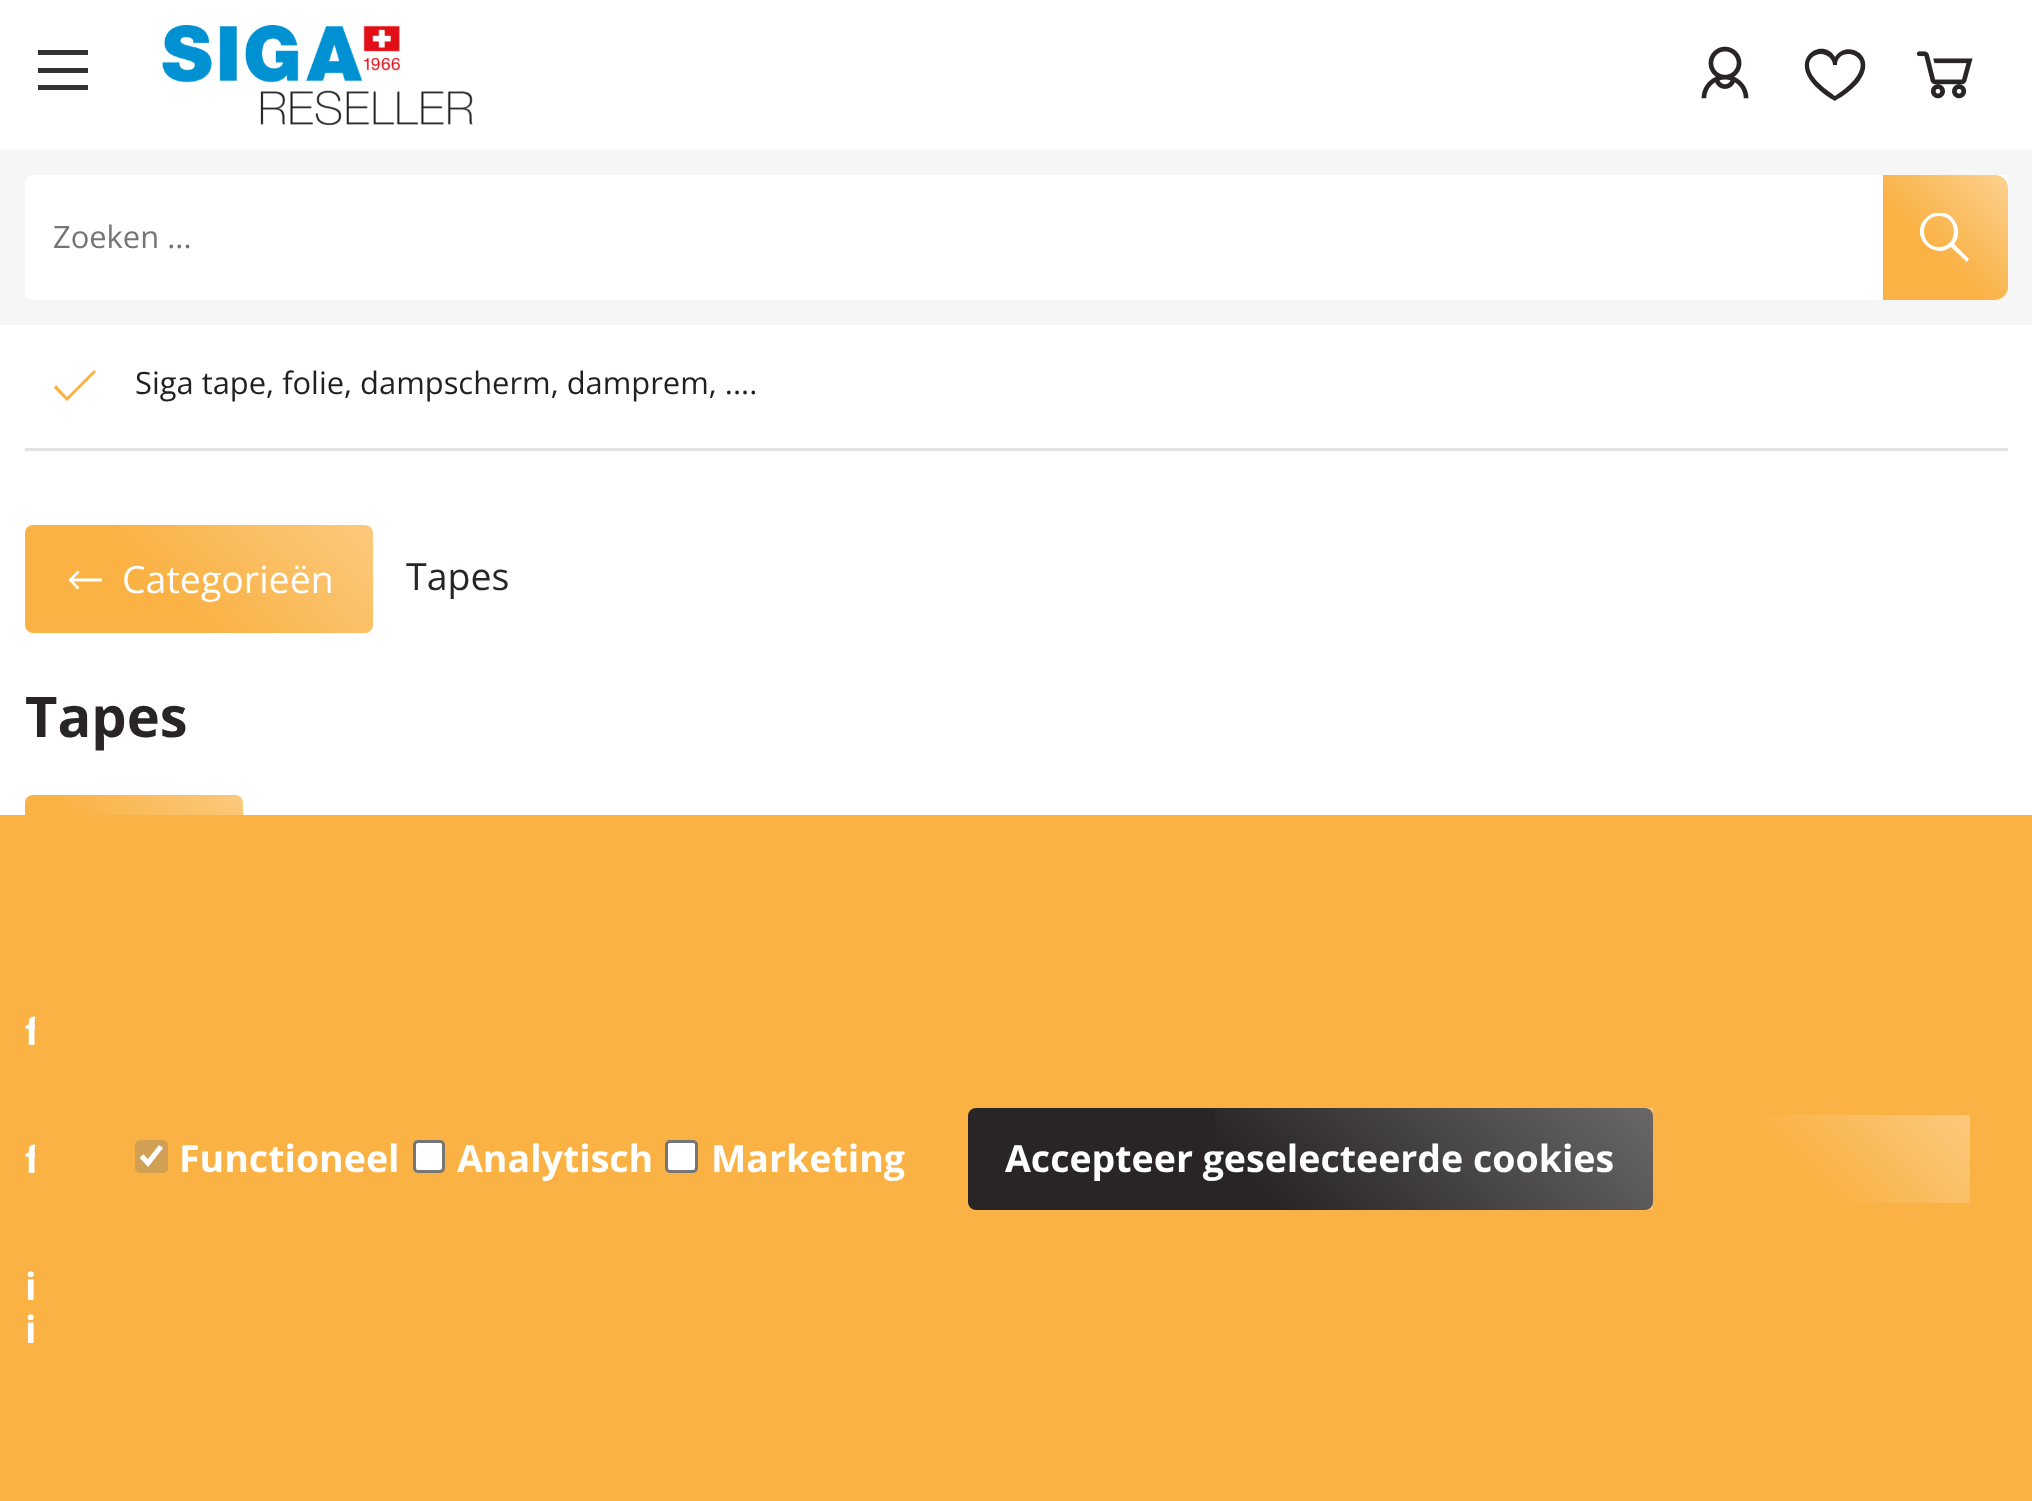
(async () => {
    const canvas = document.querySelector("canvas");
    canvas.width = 2032;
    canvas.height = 1501;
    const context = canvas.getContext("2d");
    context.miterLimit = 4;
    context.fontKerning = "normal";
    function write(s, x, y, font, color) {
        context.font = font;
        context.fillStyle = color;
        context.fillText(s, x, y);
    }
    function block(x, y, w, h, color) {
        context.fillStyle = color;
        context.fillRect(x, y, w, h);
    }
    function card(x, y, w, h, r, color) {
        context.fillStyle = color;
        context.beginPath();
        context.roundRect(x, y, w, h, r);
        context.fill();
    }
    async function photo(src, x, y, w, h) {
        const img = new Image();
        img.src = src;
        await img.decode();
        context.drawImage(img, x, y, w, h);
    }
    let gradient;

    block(0, 0, 2032, 1501, "rgb(255, 255, 255)");
    block(38, 50, 50, 5, "rgb(51, 51, 51)");
    block(38, 68, 50, 5, "rgb(51, 51, 51)");
    block(38, 85, 50, 5, "rgb(51, 51, 51)");
    await photo("media/1.png", 162, 25, 311, 100);
    await photo("media/2.png", 1701, 46, 48, 53);
    context.fillStyle = "rgb(41, 37, 38)";
    context.beginPath();
    context.moveTo(1835, 101);
    context.bezierCurveTo(1775, 66, 1821, 33, 1835, 57);
    context.bezierCurveTo(1847, 38, 1881, 56, 1857, 84);
    context.bezierCurveTo(1851, 90, 1844, 96, 1836, 100);
    context.closePath();
    context.moveTo(1821, 54);
    context.bezierCurveTo(1814, 54, 1809, 59, 1809, 65);
    context.bezierCurveTo(1809, 79, 1830, 92, 1835, 96);
    context.bezierCurveTo(1842, 91, 1849, 86, 1854, 80);
    context.bezierCurveTo(1876, 54, 1837, 45, 1837, 65);
    context.lineTo(1833, 65);
    context.bezierCurveTo(1833, 59, 1827, 54, 1821, 54);
    context.closePath();
    context.fill();
    await photo("media/3.png", 1916, 51, 57, 48);
    block(0, 150, 2032, 175, "rgb(246, 246, 246)");
    card(25, 175, 1983, 125, 8, "rgb(255, 255, 255)");
    write("Zoeken ...", 53, 248, "30.9px Open Sans", "rgb(117, 117, 117)");
    context.fillStyle = "rgb(250, 178, 69)";
    context.beginPath();
    context.roundRect(1883, 175, 125, 125, [0, 13, 13, 0]);
    context.fill();
    gradient = context.createLinearGradient(2008, 175, 1883, 300);
    gradient.addColorStop(0, "rgba(255, 255, 255, 0.4)");
    gradient.addColorStop(0.6, "rgba(255, 255, 255, 0)");
    context.fillStyle = gradient;
    context.fillRect(1883, 175, 125, 125);
    context.save();
    context.beginPath();
    context.rect(1920, 213, 50, 50);
    context.clip();
    context.fillStyle = "rgb(255, 255, 255)";
    context.beginPath();
    context.moveTo(1939, 212);
    context.bezierCurveTo(1955, 212, 1964, 232, 1954, 244);
    context.lineTo(1969, 259);
    context.lineTo(1967, 262);
    context.lineTo(1951, 247);
    context.bezierCurveTo(1933, 261, 1908, 235, 1926, 218);
    context.bezierCurveTo(1929, 215, 1934, 212, 1939, 212);
    context.closePath();
    context.moveTo(1939, 216);
    context.bezierCurveTo(1919, 216, 1919, 247, 1939, 247);
    context.bezierCurveTo(1959, 247, 1959, 216, 1939, 216);
    context.closePath();
    context.fill();
    context.restore();
    block(25, 448, 1983, 3, "rgb(227, 227, 227)");
    context.fillStyle = "rgb(250, 177, 66)";
    context.beginPath();
    context.moveTo(94, 370);
    context.lineTo(67, 397);
    context.lineTo(56, 385);
    context.lineTo(54, 388);
    context.lineTo(67, 401);
    context.lineTo(96, 372);
    context.closePath();
    context.fill();
    write("Siga tape, folie, dampscherm, damprem, ....", 135, 394, "30.9px Open Sans", "rgb(35, 31, 32)");
    card(25, 525, 348, 108, 8, "rgb(250, 178, 69)");
    gradient = context.createLinearGradient(313, 465, 85, 693);
    gradient.addColorStop(0, "rgba(255, 255, 255, 0.3)");
    gradient.addColorStop(0.6, "rgba(255, 255, 255, 0)");
    context.fillStyle = gradient;
    context.fillRect(120, 525, 253, 108);
    context.fillStyle = "rgb(255, 255, 255)";
    context.beginPath();
    context.moveTo(77.5, 570.5);
    context.lineTo(68.5, 580);
    context.lineTo(77.5, 589.5);
    context.lineTo(79.5, 587.5);
    context.lineTo(73.5, 581.5);
    context.lineTo(102, 581.5);
    context.lineTo(102, 578.5);
    context.lineTo(73.5, 578.5);
    context.lineTo(79.5, 572.5);
    context.closePath();
    context.fill();
    write("Categorieën", 122, 593, "37.5px Open Sans", "rgb(255, 255, 255)");
    write("Tapes", 406, 590, "37.5px Open Sans", "rgb(41, 37, 38)");
    write("Tapes", 25, 737, "bold 56px Open Sans", "rgb(41, 37, 38)");
    card(25, 795, 218, 105, 8, "rgb(250, 178, 69)");
    gradient = context.createLinearGradient(214, 767, 53, 928);
    gradient.addColorStop(0, "rgba(255, 255, 255, 0.3)");
    gradient.addColorStop(0.6, "rgba(255, 255, 255, 0)");
    context.fillStyle = gradient;
    context.fillRect(63, 795, 180, 20);
    block(0, 815, 2032, 686, "rgb(250, 178, 69)");
    context.save();
    context.beginPath();
    context.rect(25, 840, 10, 638);
    context.clip();
    write("f", 25, 1045, "bold 37.5px Open Sans", "rgb(255, 255, 255)");
    write("f", 25, 1173, "bold 37.5px Open Sans", "rgb(255, 255, 255)");
    context.restore();
    write("i", 25, 1300, "bold 37.5px Open Sans", "rgb(255, 255, 255)");
    write("i", 25, 1343, "bold 37.5px Open Sans", "rgb(255, 255, 255)");
    card(135, 1140, 33, 33, 5, "rgb(210, 160, 84)");
    context.beginPath();
    context.moveTo(141.5, 1156);
    context.lineTo(148, 1163);
    context.lineTo(161, 1146.5);
    context.strokeStyle = "rgb(255, 255, 255)";
    context.lineWidth = 5.2;
    context.stroke();
    write("Functioneel", 179, 1172, "bold 37.5px Open Sans", "rgb(255, 255, 255)");
    context.beginPath();
    context.roundRect(414.5, 1141.5, 29, 30, 3.5);
    context.fill();
    context.strokeStyle = "rgb(118, 118, 118)";
    context.lineWidth = 3;
    context.stroke();
    write("Analytisch", 457, 1172, "bold 37.5px Open Sans", "rgb(255, 255, 255)");
    context.beginPath();
    context.roundRect(666.5, 1141.5, 30, 30, 3.5);
    context.fill();
    context.stroke();
    write("Marketing", 711, 1172, "bold 37.5px Open Sans", "rgb(255, 255, 255)");
    card(968, 1108, 685, 102, 8, "rgb(41, 37, 38)");
    gradient = context.createLinearGradient(1507, 962, 1113, 1356);
    gradient.addColorStop(0, "rgba(255, 255, 255, 0.3)");
    gradient.addColorStop(0.6, "rgba(255, 255, 255, 0)");
    context.fillStyle = gradient;
    context.fillRect(1215, 1108, 438, 102);
    write("Accepteer geselecteerde cookies", 1005, 1172, "bold 37.5px Open Sans", "rgb(255, 255, 255)");
    gradient = context.createLinearGradient(1922, 1067, 1738, 1251);
    gradient.addColorStop(0, "rgb(252, 201, 125)");
    gradient.addColorStop(0.6, "rgb(250, 178, 69)");
    context.fillStyle = gradient;
    context.fillRect(1760, 1115, 210, 88);
})();
